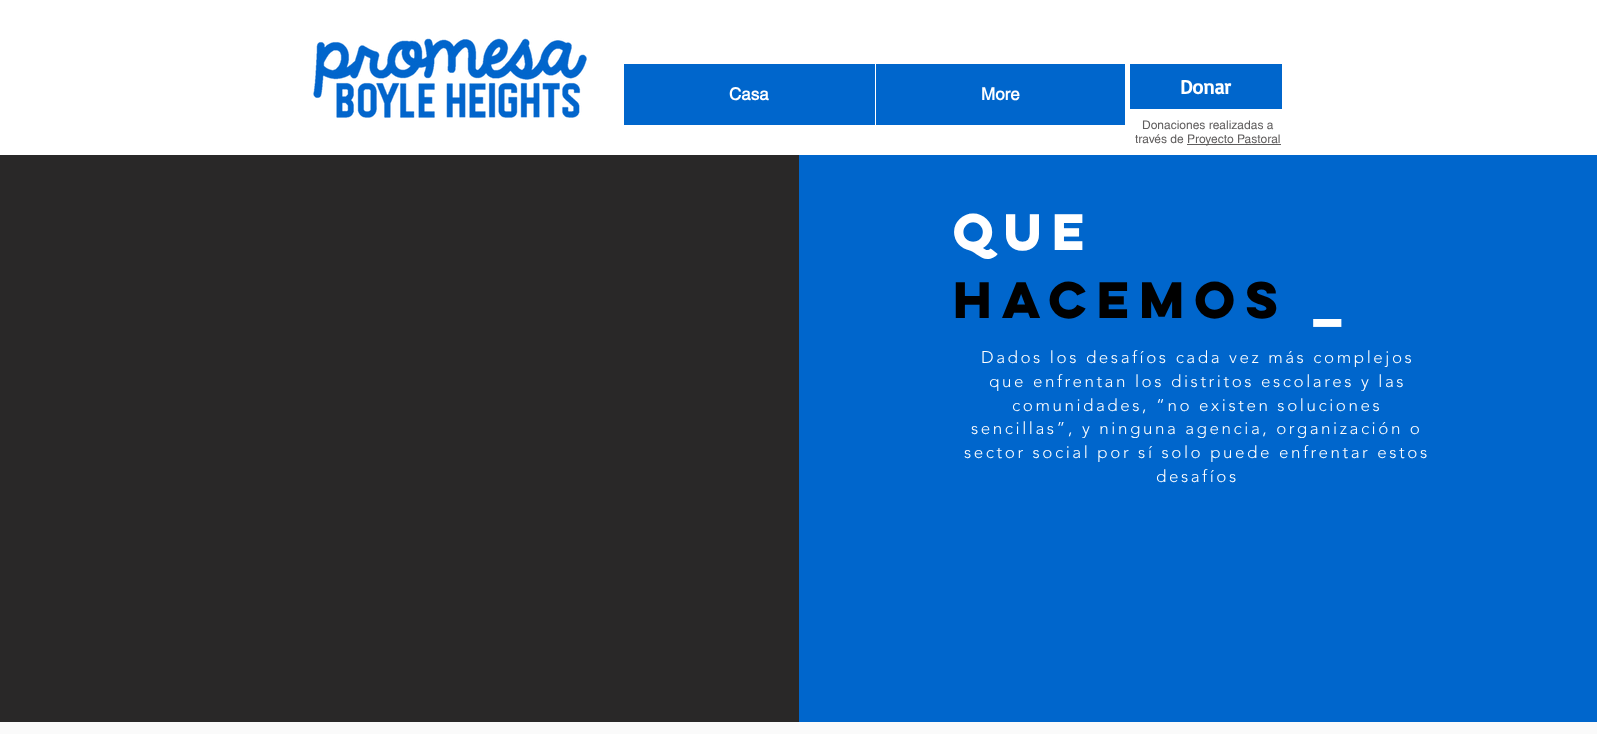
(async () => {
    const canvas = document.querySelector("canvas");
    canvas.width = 1597;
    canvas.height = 734;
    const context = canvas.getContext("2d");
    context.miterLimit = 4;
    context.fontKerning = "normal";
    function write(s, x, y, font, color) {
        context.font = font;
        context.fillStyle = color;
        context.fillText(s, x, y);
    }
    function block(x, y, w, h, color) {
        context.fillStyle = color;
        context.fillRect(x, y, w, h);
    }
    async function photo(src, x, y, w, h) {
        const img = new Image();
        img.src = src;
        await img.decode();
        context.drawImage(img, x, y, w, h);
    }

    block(0, 0, 1597, 734, "rgb(255, 255, 255)");
    await photo("media/1.png", 313, 38, 274, 80);
    block(624, 64, 501, 61, "rgb(0, 102, 204)");
    write("Casa", 729, 100, "bold 17px helvetica", "rgb(255, 255, 255)");
    block(875, 64, 1, 61, "rgb(255, 255, 255)");
    write("More", 981, 100, "bold 17px helvetica", "rgb(255, 255, 255)");
    block(1130, 64, 152, 45, "rgb(0, 102, 204)");
    write("Donar", 1180, 94, "bold 20px Basic", "rgb(255, 255, 255)");
    write("Donaciones realizadas a", 1142, 129, "12px helvetica", "rgb(96, 94, 94)");
    write("través de", 1135, 143, "12px helvetica", "rgb(96, 94, 94)");
    block(1187, 144, 94, 1, "rgb(96, 94, 94)");
    write("Proyecto Pastoral", 1187, 143, "12px helvetica", "rgb(96, 94, 94)");
    block(0, 155, 799, 567, "rgb(41, 40, 40)");
    block(799, 155, 798, 567, "rgb(0, 102, 204)");
    write("QUE", 953, 250, "bold 46px 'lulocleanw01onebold'", "rgb(255, 255, 255)");
    write("HACEMOS", 953, 318, "bold 46px 'lulocleanw01onebold'", "rgb(0, 0, 0)");
    write("_", 1311, 318, "bold 46px 'lulocleanw01onebold'", "rgb(255, 255, 255)");
    context.letterSpacing = "2.55px";
    write("Dados los desafíos cada vez más complejos", 981, 363, "300 17px 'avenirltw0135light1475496'", "rgb(255, 255, 255)");
    write("que enfrentan los distritos escolares y las", 989, 387, "300 17px 'avenirltw0135light1475496'", "rgb(255, 255, 255)");
    write("comunidades, “no existen soluciones", 1012, 411, "300 17px 'avenirltw0135light1475496'", "rgb(255, 255, 255)");
    write("sencillas”, y ninguna agencia, organización o", 971, 434, "300 17px 'avenirltw0135light1475496'", "rgb(255, 255, 255)");
    write("sector social por sí solo puede enfrentar estos", 964, 458, "300 17px 'avenirltw0135light1475496'", "rgb(255, 255, 255)");
    write("desafíos", 1156, 482, "300 17px 'avenirltw0135light1475496'", "rgb(255, 255, 255)");
    block(0, 722, 1597, 12, "rgb(250, 250, 250)");
})();
